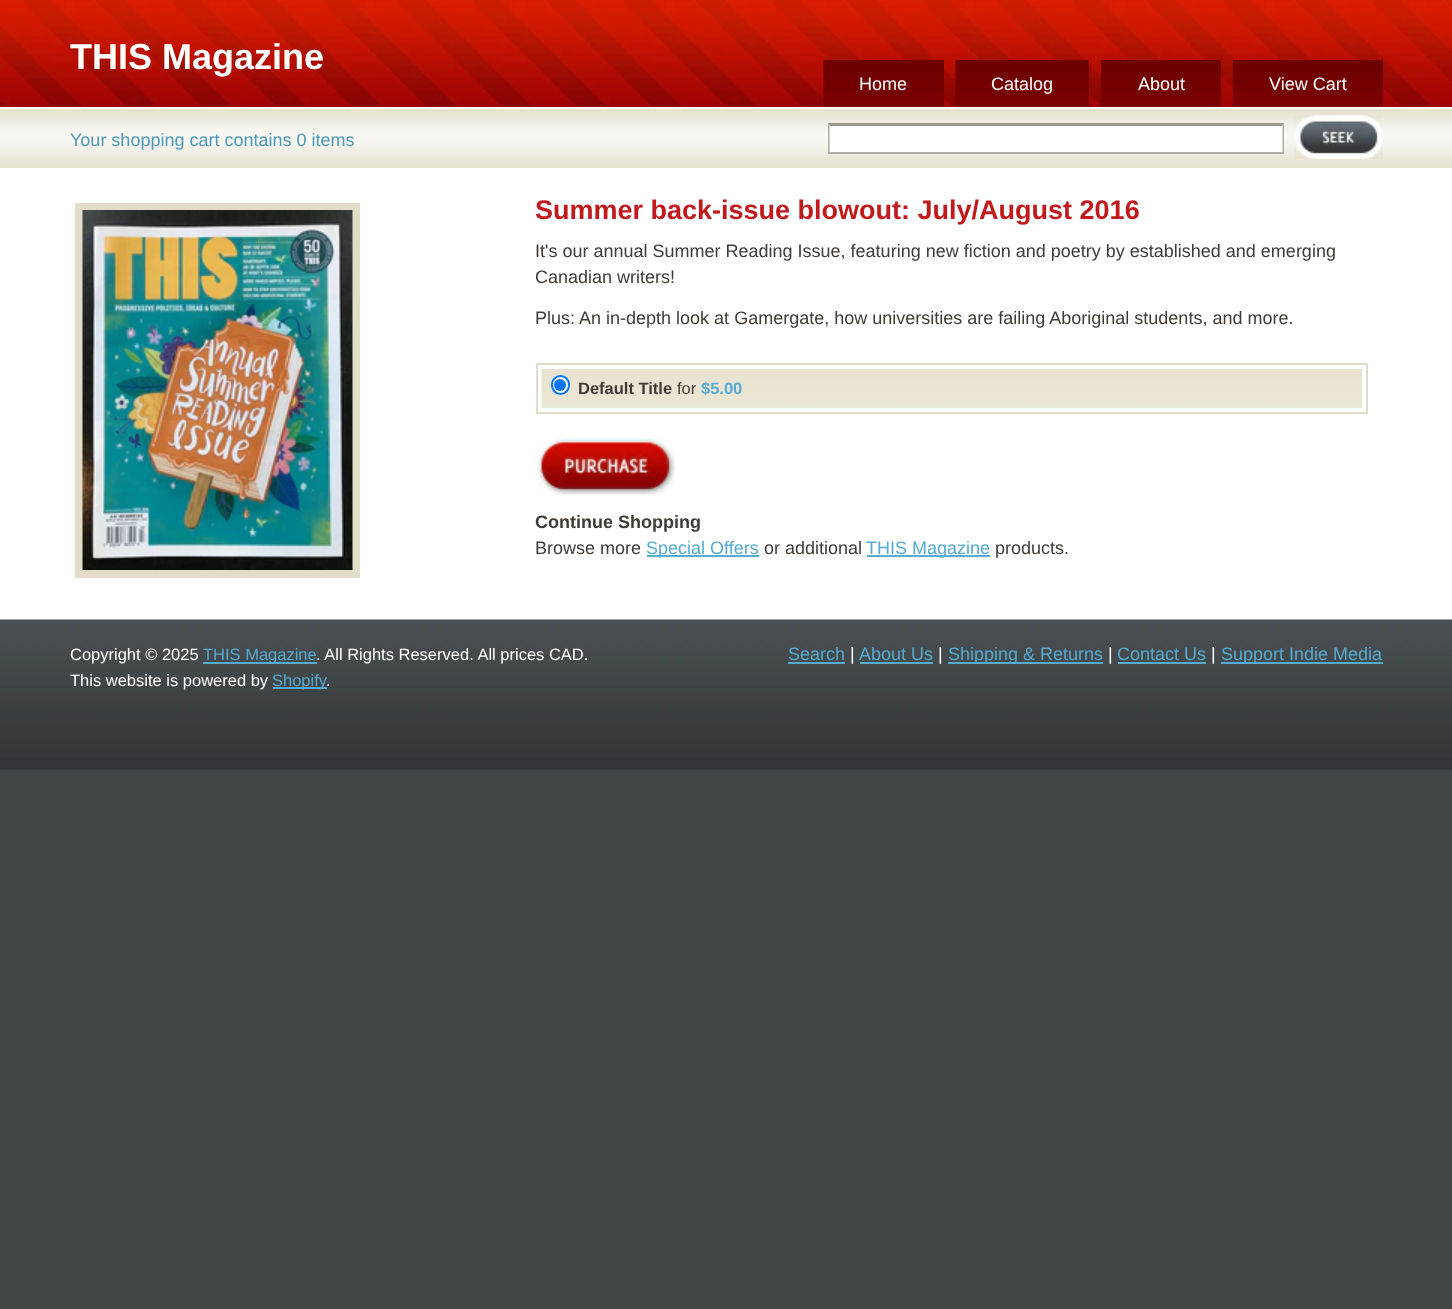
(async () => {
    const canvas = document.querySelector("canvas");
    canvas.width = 1452;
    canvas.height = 1309;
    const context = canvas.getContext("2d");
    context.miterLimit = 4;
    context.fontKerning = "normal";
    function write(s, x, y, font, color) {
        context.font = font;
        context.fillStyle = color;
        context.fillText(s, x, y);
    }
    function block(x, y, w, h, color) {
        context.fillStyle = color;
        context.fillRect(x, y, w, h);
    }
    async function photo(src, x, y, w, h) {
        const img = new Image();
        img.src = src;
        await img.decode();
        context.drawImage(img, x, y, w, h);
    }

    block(0, 0, 1452, 1309, "rgb(64, 69, 72)");
    block(0, 106, 1452, 1, "rgb(155, 1, 3)");
    await photo("media/1.png", 0, 0, 1452, 107);
    write("THIS Magazine", 70, 69, "bold 36px Liberation Sans", "rgb(255, 255, 255)");
    block(824, 60, 120, 47, "rgb(116, 0, 3)");
    await photo("media/2.png", 823, 60, 121, 47);
    write("Home", 859, 90, "18px Liberation Sans", "rgb(255, 255, 255)");
    block(956, 106, 133, 1, "rgb(116, 0, 3)");
    await photo("media/3.png", 955, 60, 134, 47);
    write("Catalog", 991, 90, "18px Liberation Sans", "rgb(255, 255, 255)");
    block(1101, 106, 120, 1, "rgb(116, 0, 3)");
    await photo("media/4.png", 1101, 60, 120, 47);
    write("About", 1138, 90, "18px Liberation Sans", "rgb(255, 255, 255)");
    block(1233, 106, 150, 1, "rgb(116, 0, 3)");
    await photo("media/5.png", 1233, 60, 150, 47);
    write("View Cart", 1269, 90, "18px Liberation Sans", "rgb(255, 255, 255)");
    await photo("media/6.png", 0, 109, 1452, 59);
    block(0, 107, 1452, 2, "rgb(255, 255, 255)");
    write("Your shopping cart contains 0 items", 70, 146, "18px Liberation Sans", "rgb(76, 153, 189)");
    block(830, 126, 453, 26, "rgb(255, 255, 255)");
    context.fillStyle = "rgb(153, 152, 141)";
    context.beginPath();
    context.moveTo(828, 123);
    context.lineTo(1284, 123);
    context.lineTo(1282, 126);
    context.lineTo(830, 126);
    context.closePath();
    context.fill();
    context.fillStyle = "rgb(178, 176, 164)";
    context.beginPath();
    context.moveTo(1284, 123);
    context.lineTo(1284, 153);
    context.lineTo(1282.5, 151.5);
    context.lineTo(1282.5, 126);
    context.closePath();
    context.fill();
    block(828, 152, 456, 2, "rgb(178, 176, 164)");
    context.beginPath();
    context.moveTo(828, 153);
    context.lineTo(828, 123);
    context.lineTo(829.5, 126);
    context.lineTo(829.5, 151.5);
    context.closePath();
    context.fill();
    await photo("media/7.png", 1294, 115, 89, 44);
    block(0, 168, 1452, 452, "rgb(255, 255, 255)");
    block(75, 203, 285, 375, "rgb(225, 221, 200)");
    await photo("media/8.png", 82, 210, 271, 360);
    write("Summer back-issue blowout: July/August 2016", 535, 219, "bold 27px Liberation Sans", "rgb(193, 25, 28)");
    write("It's our annual Summer Reading Issue, featuring new fiction and poetry by established and emerging", 535, 257, "18px Liberation Sans", "rgb(64, 59, 53)");
    write("Canadian writers!", 535, 283, "18px Liberation Sans", "rgb(64, 59, 53)");
    write("Plus: An in-depth look at Gamergate, how universities are failing Aboriginal students, and more.", 535, 324, "18px Liberation Sans", "rgb(64, 59, 53)");
    context.strokeStyle = "rgb(225, 221, 200)";
    context.lineWidth = 2;
    context.strokeRect(537, 364, 830, 49);
    await photo("media/9.png", 541, 369, 821, 39);
    context.fillStyle = "rgb(255, 255, 255)";
    context.beginPath();
    context.roundRect(552, 376, 17, 18, 8.5);
    context.fill();
    context.strokeStyle = "rgb(0, 117, 255)";
    context.stroke();
    context.fillStyle = "rgb(0, 117, 255)";
    context.beginPath();
    context.arc(560, 385, 6, 0, Math.PI * 2);
    context.fill();
    write("Default Title", 578, 394, "bold 16.5px Liberation Sans", "rgb(64, 59, 53)");
    write("for", 677, 394, "16.5px Liberation Sans", "rgb(64, 59, 53)");
    write("$5.00", 701, 394, "bold 16.5px Liberation Sans", "rgb(85, 171, 210)");
    await photo("media/10.png", 536, 436, 139, 59);
    write("Continue Shopping", 535, 528, "bold 18px Liberation Sans", "rgb(64, 59, 53)");
    write("Browse more", 535, 554, "18px Liberation Sans", "rgb(64, 59, 53)");
    block(647, 555, 112, 2, "rgb(85, 171, 210)");
    write("Special Offers", 646, 554, "18px Liberation Sans", "rgb(85, 171, 210)");
    write("or additional", 764, 554, "18px Liberation Sans", "rgb(64, 59, 53)");
    block(867, 555, 123, 2, "rgb(85, 171, 210)");
    write("THIS Magazine", 866, 554, "18px Liberation Sans", "rgb(85, 171, 210)");
    write("products.", 995, 554, "18px Liberation Sans", "rgb(64, 59, 53)");
    await photo("media/11.png", 0, 619, 1452, 151);
    write("Copyright © 2025", 70, 660, "16.5px Liberation Sans", "rgb(255, 255, 255)");
    block(203, 662, 114, 2, "rgb(85, 171, 210)");
    write("THIS Magazine", 203, 660, "16.5px Liberation Sans", "rgb(85, 171, 210)");
    write(". All Rights Reserved. All prices CAD.", 316, 660, "16.5px Liberation Sans", "rgb(255, 255, 255)");
    write("Search", 788, 660, "18px Liberation Sans", "rgb(85, 171, 210)");
    block(788, 662, 57, 2, "rgb(85, 171, 210)");
    write("|", 850, 660, "18px Liberation Sans", "rgb(255, 255, 255)");
    write("About Us", 859, 660, "18px Liberation Sans", "rgb(85, 171, 210)");
    block(860, 662, 73, 2, "rgb(85, 171, 210)");
    write("|", 938, 660, "18px Liberation Sans", "rgb(255, 255, 255)");
    block(948, 662, 155, 2, "rgb(85, 171, 210)");
    write("Shipping & Returns", 948, 660, "18px Liberation Sans", "rgb(85, 171, 210)");
    write("|", 1108, 660, "18px Liberation Sans", "rgb(255, 255, 255)");
    write("Contact Us", 1117, 660, "18px Liberation Sans", "rgb(85, 171, 210)");
    block(1118, 662, 88, 2, "rgb(85, 171, 210)");
    write("|", 1211, 660, "18px Liberation Sans", "rgb(255, 255, 255)");
    block(1221, 662, 162, 2, "rgb(85, 171, 210)");
    write("Support Indie Media", 1221, 660, "18px Liberation Sans", "rgb(85, 171, 210)");
    write("This website is powered by", 70, 686, "16.5px Liberation Sans", "rgb(255, 255, 255)");
    block(273, 687, 54, 2, "rgb(85, 171, 210)");
    write("Shopify", 272, 686, "16.5px Liberation Sans", "rgb(85, 171, 210)");
    write(".", 326, 686, "16.5px Liberation Sans", "rgb(255, 255, 255)");
})();
